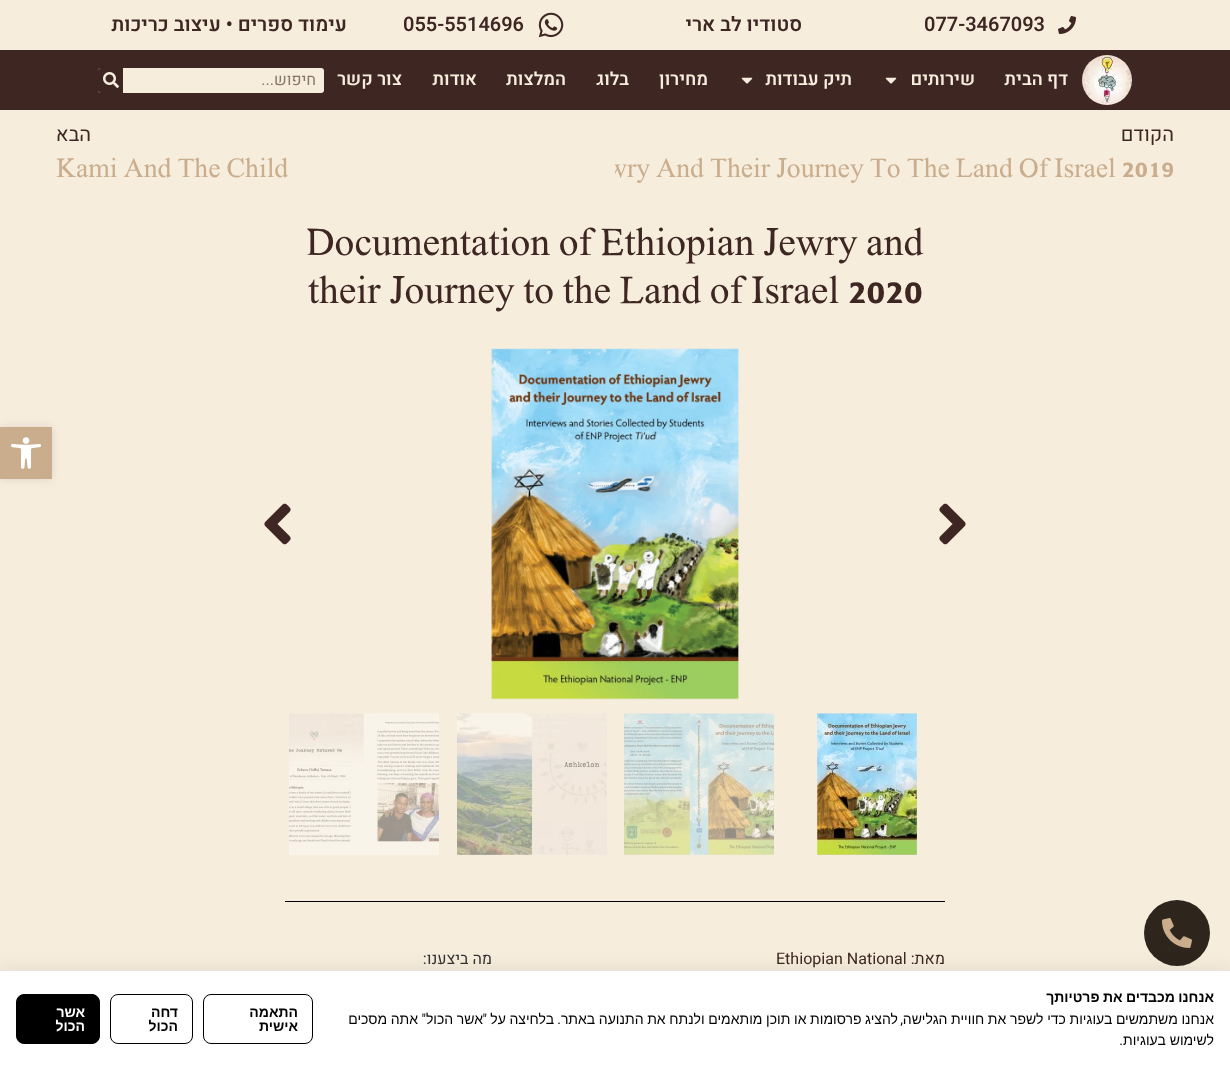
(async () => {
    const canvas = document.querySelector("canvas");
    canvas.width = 1230;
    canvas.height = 1068;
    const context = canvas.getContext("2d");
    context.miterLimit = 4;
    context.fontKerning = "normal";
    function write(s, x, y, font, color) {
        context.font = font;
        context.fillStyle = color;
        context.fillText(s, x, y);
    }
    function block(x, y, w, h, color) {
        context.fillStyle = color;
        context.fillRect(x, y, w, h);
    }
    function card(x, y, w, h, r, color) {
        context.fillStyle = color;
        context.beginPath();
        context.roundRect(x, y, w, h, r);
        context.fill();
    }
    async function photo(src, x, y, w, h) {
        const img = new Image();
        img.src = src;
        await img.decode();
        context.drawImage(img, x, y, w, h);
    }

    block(0, 0, 1230, 1068, "rgb(246, 237, 221)");
    await photo("media/1.png", 1058, 16, 18, 18);
    write("077-3467093", 924, 31, "600 20px Heebo", "rgb(62, 39, 35)");
    context.direction = "rtl";
    write("סטודיו לב ארי", 802, 31, "600 20px Heebo", "rgb(62, 39, 35)");
    await photo("media/2.png", 538, 12, 26, 26);
    context.direction = "ltr";
    write("055-5514696", 403, 31, "600 20px Heebo", "rgb(62, 39, 35)");
    context.direction = "rtl";
    write("עימוד ספרים • עיצוב כריכות", 347, 31, "600 20px Heebo", "rgb(62, 39, 35)");
    block(0, 50, 1230, 60, "rgb(62, 39, 35)");
    await photo("media/3.png", 1082, 55, 50, 50);
    write("דף הבית", 1068, 85, "600 18px Heebo", "rgb(246, 237, 221)");
    write("שירותים", 975, 85, "600 18px Heebo", "rgb(246, 237, 221)");
    await photo("media/4.png", 885, 77, 12, 7);
    write("תיק עבודות", 852, 85, "600 18px Heebo", "rgb(246, 237, 221)");
    await photo("media/4.png", 741, 77, 12, 7);
    write("מחירון", 708, 85, "600 18px Heebo", "rgb(246, 237, 221)");
    write("בלוג", 629, 85, "600 18px Heebo", "rgb(246, 237, 221)");
    write("המלצות", 566, 85, "600 18px Heebo", "rgb(246, 237, 221)");
    write("אודות", 477, 85, "600 18px Heebo", "rgb(246, 237, 221)");
    write("צור קשר", 402, 85, "600 18px Heebo", "rgb(246, 237, 221)");
    card(98, 68, 226, 25, 3, "rgb(246, 237, 221)");
    write("חיפוש...", 316, 85, "16px Heebo", "rgb(136, 118, 109)");
    context.fillStyle = "rgb(62, 39, 35)";
    context.beginPath();
    context.roundRect(98, 68, 25, 25, [3, 0, 0, 3]);
    context.fill();
    await photo("media/5.png", 103, 72, 16, 16);
    write("הקודם", 1174, 141, "20px Heebo", "rgb(62, 39, 35)");
    context.save();
    context.beginPath();
    context.rect(615, 150, 559, 42);
    context.clip();
    context.direction = "ltr";
    write("wry And Their Journey To The Land Of Israel 2019", 607, 177, "bold 28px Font", "rgb(202, 173, 140)");
    context.restore();
    write("הבא", 91, 141, "20px Heebo", "rgb(62, 39, 35)");
    context.direction = "ltr";
    write("Kami And The Child", 56, 177, "bold 28px Font", "rgb(202, 173, 140)");
    write("Documentation of Ethiopian Jewry and", 306, 255, "bold 40px Font", "rgb(62, 39, 35)");
    write("their Journey to the Land of Israel 2020", 308, 303, "bold 40px Font", "rgb(62, 39, 35)");
    await photo("media/6.png", 939, 503, 27, 42);
    await photo("media/7.png", 491, 348, 248, 352);
    await photo("media/8.png", 264, 503, 27, 42);
    await photo("media/9.png", 817, 713, 100, 142);
    await photo("media/10.png", 624, 713, 150, 142);
    await photo("media/11.png", 457, 713, 150, 142);
    await photo("media/12.png", 289, 713, 150, 142);
    block(285, 901, 660, 1, "rgb(0, 0, 0)");
    context.direction = "rtl";
    write("מאת:", 945, 964, "16px Heebo", "rgb(62, 39, 35)");
    context.direction = "ltr";
    write("Ethiopian National", 776, 964, "16px Heebo", "rgb(62, 39, 35)");
    context.direction = "rtl";
    write("מה ביצענו:", 492, 964, "16px Heebo", "rgb(51, 51, 51)");
    context.fillStyle = "rgba(0, 0, 0, 0.1)";
    context.filter = "blur(5px)";
    context.beginPath();
    context.rect(0, 427, 52, 52);
    context.fill();
    context.filter = "none";
    block(0, 427, 52, 52, "rgb(202, 173, 140)");
    await photo("media/13.png", 11, 437, 30, 32);
    context.fillStyle = "rgb(46, 38, 29)";
    context.beginPath();
    context.arc(1177, 933, 33, 0, Math.PI * 2);
    context.fill();
    await photo("media/14.png", 1162, 918, 30, 30);
    context.fillStyle = "rgba(0, 0, 0, 0.06)";
    context.filter = "blur(8px)";
    context.beginPath();
    context.rect(0, 966, 1230, 98);
    context.fill();
    context.filter = "none";
    block(0, 971, 1230, 97, "rgb(255, 255, 255)");
    block(0, 970, 1230, 1, "rgb(229, 229, 229)");
    context.wordSpacing = "-0.5px";
    write("אנחנו מכבדים את פרטיותך", 1214, 1002, "bold 14px Liberation Sans", "rgb(0, 0, 0)");
    context.wordSpacing = "-0.25px";
    write("אנחנו משתמשים בעוגיות כדי לשפר את חוויית הגלישה", 1214, 1024, "14px Liberation Sans", "rgb(0, 0, 0)");
    context.wordSpacing = "0px";
    write(",", 903, 1024, "14px Roboto", "rgb(0, 0, 0)");
    context.wordSpacing = "-0.25px";
    write("להציג פרסומות או תוכן מותאמים ולנתח את התנועה באתר", 898, 1024, "14px Liberation Sans", "rgb(0, 0, 0)");
    context.wordSpacing = "0px";
    write(".", 561, 1024, "14px Roboto", "rgb(0, 0, 0)");
    context.wordSpacing = "-0.25px";
    write("בלחיצה על", 554, 1024, "14px Liberation Sans", "rgb(0, 0, 0)");
    write("אשר הכול", 483, 1024, "14px Liberation Sans", "rgb(0, 0, 0)");
    context.wordSpacing = "0px";
    write("\"", 487, 1024, "14px Roboto", "rgb(0, 0, 0)");
    write("\"", 426, 1024, "14px Roboto", "rgb(0, 0, 0)");
    context.wordSpacing = "-0.25px";
    write("אתה מסכים", 418, 1024, "14px Liberation Sans", "rgb(0, 0, 0)");
    context.wordSpacing = "0px";
    write("לשימוש בעוגיות", 1214, 1045, "14px Liberation Sans", "rgb(0, 0, 0)");
    write(".", 1123, 1045, "14px Roboto", "rgb(0, 0, 0)");
    context.beginPath();
    context.roundRect(203.5, 994.5, 109, 49, 7.5);
    context.strokeStyle = "rgb(0, 0, 0)";
    context.stroke();
    write("התאמה", 298, 1017, "bold 14px Liberation Sans", "rgb(0, 0, 0)");
    write("אישית", 298, 1031, "bold 14px Liberation Sans", "rgb(0, 0, 0)");
    context.beginPath();
    context.roundRect(110.5, 994.5, 82, 49, 7.5);
    context.stroke();
    write("דחה", 178, 1017, "bold 14px Liberation Sans", "rgb(0, 0, 0)");
    write("הכול", 178, 1031, "bold 14px Liberation Sans", "rgb(0, 0, 0)");
    context.beginPath();
    context.roundRect(16.5, 994.5, 83, 49, 7.5);
    context.fill();
    context.stroke();
    write("אשר", 85, 1017, "bold 14px Liberation Sans", "rgb(255, 255, 255)");
    write("הכול", 85, 1031, "bold 14px Liberation Sans", "rgb(255, 255, 255)");
})();
